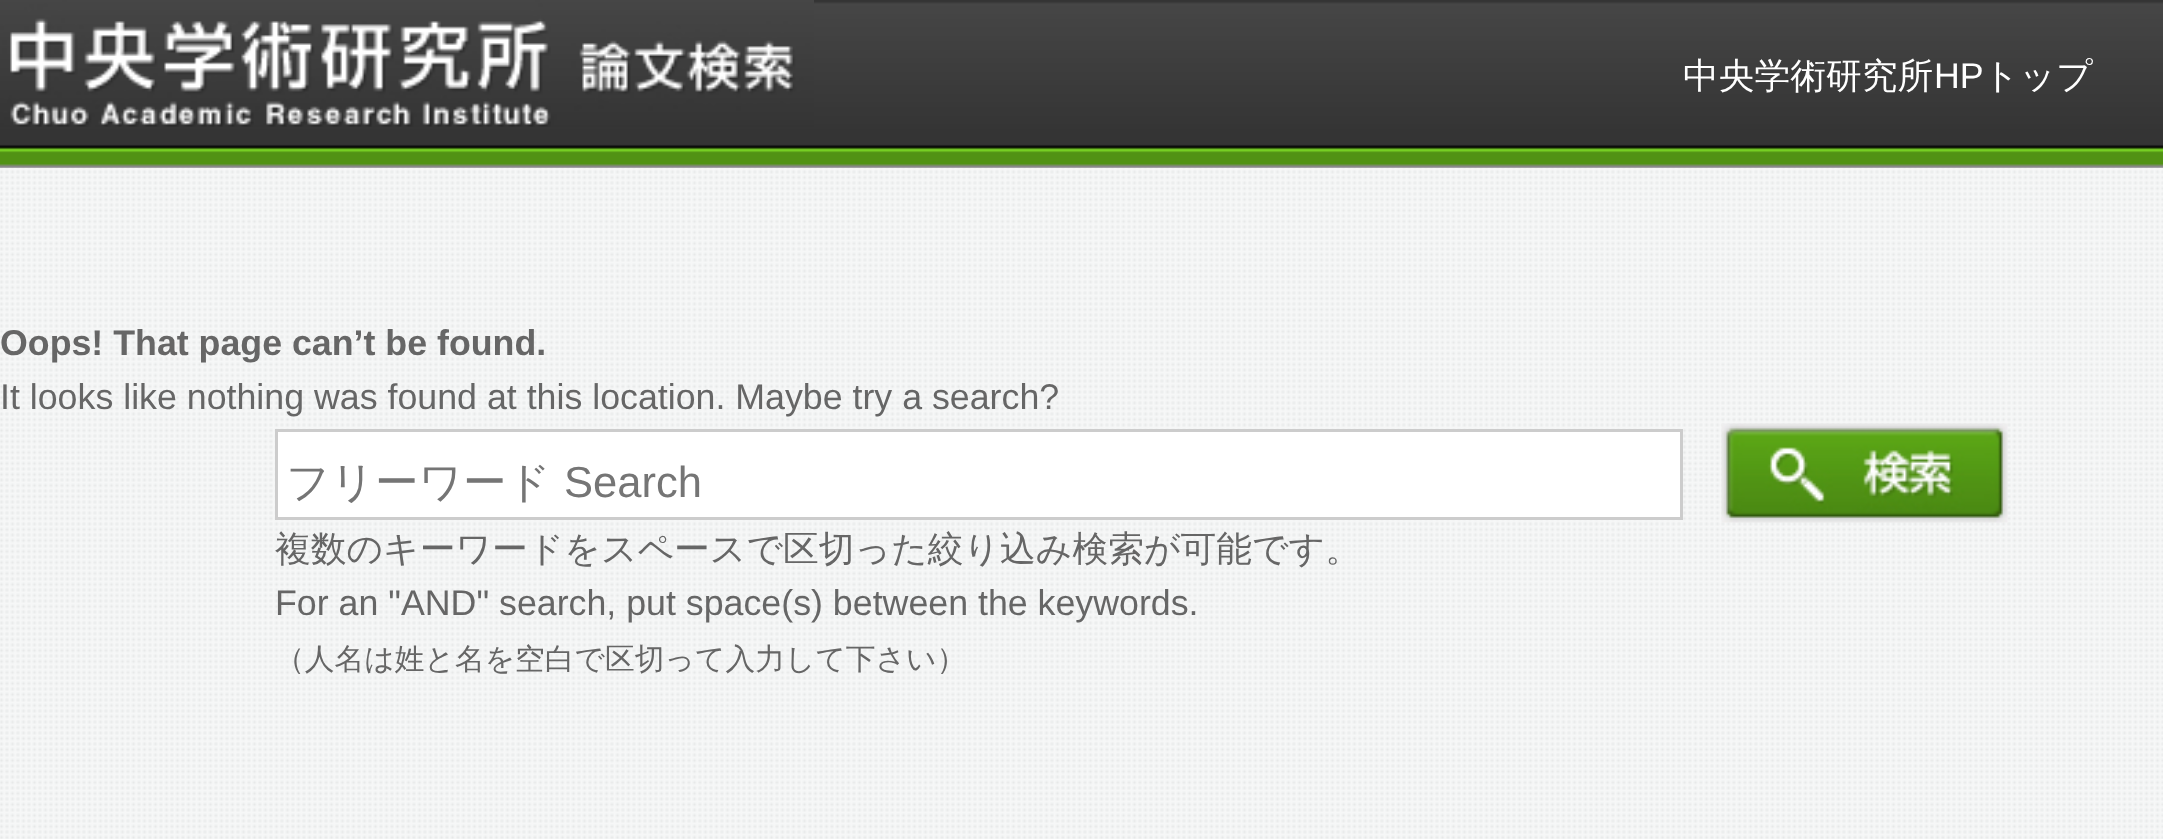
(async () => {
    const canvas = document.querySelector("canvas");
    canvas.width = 2163;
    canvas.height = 839;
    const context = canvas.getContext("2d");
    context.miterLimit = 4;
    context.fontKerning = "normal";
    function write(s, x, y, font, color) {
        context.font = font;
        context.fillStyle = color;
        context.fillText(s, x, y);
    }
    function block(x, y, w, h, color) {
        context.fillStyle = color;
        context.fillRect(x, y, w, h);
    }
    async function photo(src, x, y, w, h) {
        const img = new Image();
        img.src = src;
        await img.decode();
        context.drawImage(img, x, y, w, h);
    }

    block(0, 0, 2163, 839, "rgb(255, 255, 255)");
    await photo("media/1.png", 0, 167, 2163, 672);
    await photo("media/2.png", 0, 0, 2163, 168);
    await photo("media/3.png", 0, 0, 814, 127);
    write("中央学術研究所", 1683, 88, "500 35.75px WenQuanYi Zen Hei", "rgb(255, 255, 255)");
    write("HP", 1934, 88, "35.75px Liberation Sans", "rgb(255, 255, 255)");
    write("トップ", 1983, 88, "500 35.75px WenQuanYi Zen Hei", "rgb(255, 255, 255)");
    write("Oops! That page can’t be found.", 0, 355, "bold 35.75px Liberation Sans", "rgb(102, 102, 102)");
    write("It looks like nothing was found at this location. Maybe try a search?", 0, 409, "35.75px Liberation Sans", "rgb(102, 102, 102)");
    context.fillStyle = "rgb(255, 255, 255)";
    context.beginPath();
    context.rect(276.5, 430.5, 1405, 88);
    context.fill();
    context.strokeStyle = "rgb(204, 204, 204)";
    context.lineWidth = 3;
    context.stroke();
    write("フリーワード", 286, 497, "500 43.5px WenQuanYi Zen Hei", "rgb(117, 117, 117)");
    write("Search", 564, 497, "43.5px Liberation Sans", "rgb(117, 117, 117)");
    await photo("media/4.png", 1721, 423, 287, 100);
    write("複数のキーワードをスペースで区切った絞り込み検索が可能です。", 275, 561, "500 35.75px WenQuanYi Zen Hei", "rgb(102, 102, 102)");
    write("For an \"AND\" search, put space(s) between the keywords.", 275, 615, "35.75px Liberation Sans", "rgb(102, 102, 102)");
    write("（人名は姓と名を空白で区切って入力して下さい）", 275, 669, "500 29.75px WenQuanYi Zen Hei", "rgb(102, 102, 102)");
})();
